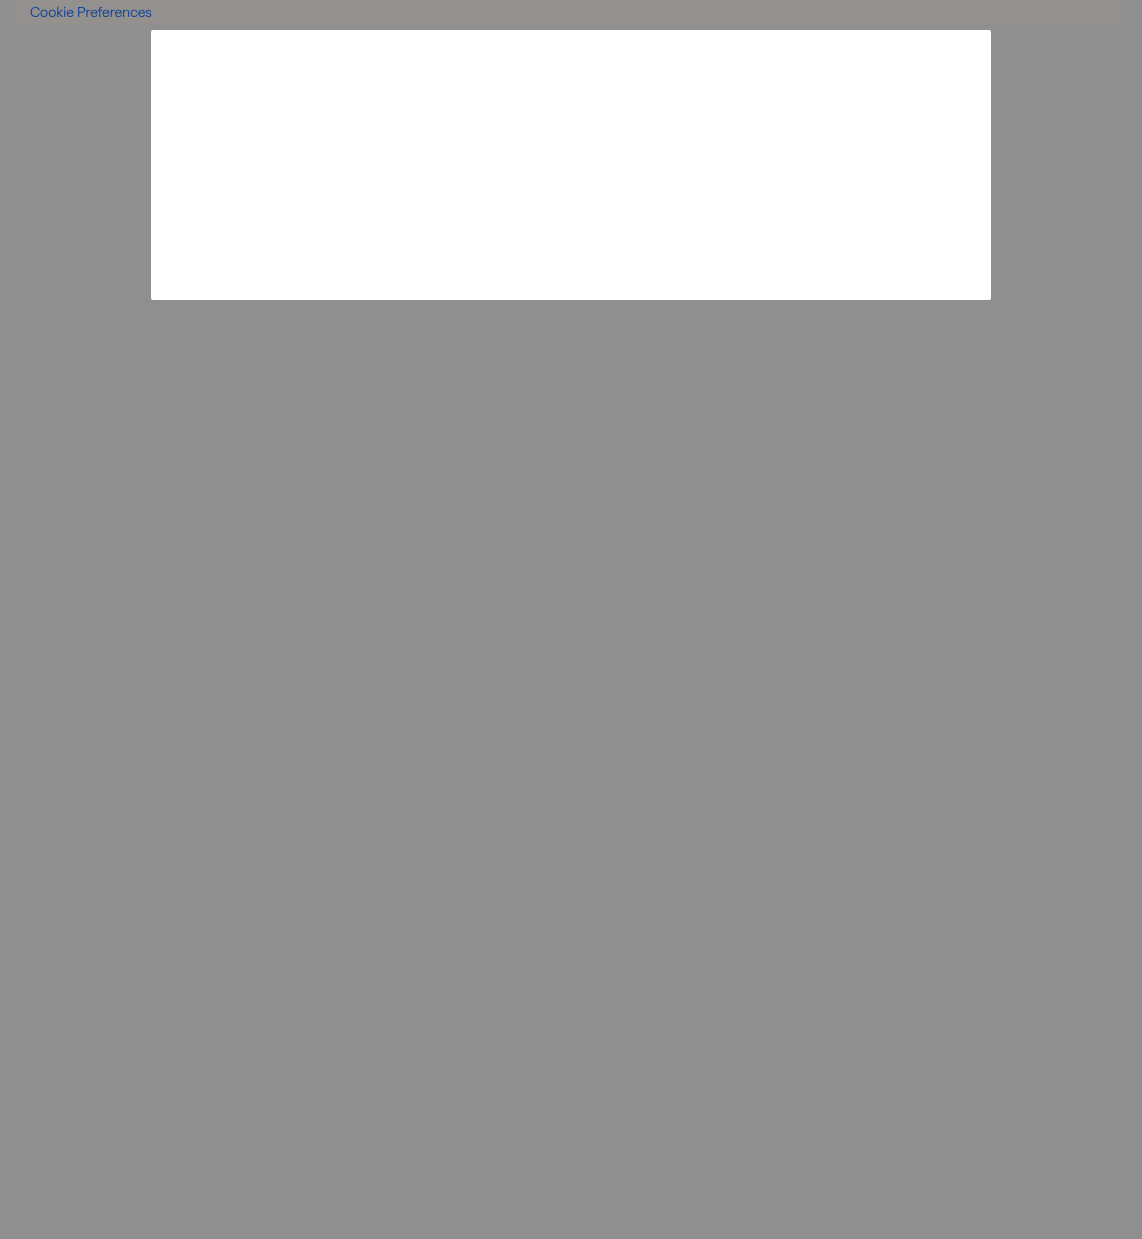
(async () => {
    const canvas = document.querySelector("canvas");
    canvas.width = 1142;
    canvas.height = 1239;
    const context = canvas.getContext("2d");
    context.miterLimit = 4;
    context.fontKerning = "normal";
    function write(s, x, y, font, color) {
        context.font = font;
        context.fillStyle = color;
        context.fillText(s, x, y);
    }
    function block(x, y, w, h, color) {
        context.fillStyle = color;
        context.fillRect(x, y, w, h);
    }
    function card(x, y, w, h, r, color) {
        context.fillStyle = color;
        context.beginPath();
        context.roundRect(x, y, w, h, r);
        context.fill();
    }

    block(0, 0, 1142, 1239, "rgb(143, 143, 143)");
    block(15, 0, 1112, 24, "rgb(147, 144, 141)");
    write("Cookie Preferences", 30, 17, "14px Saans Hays", "rgb(20, 69, 153)");
    card(151, 30, 840, 270, 2, "rgb(255, 255, 255)");
})();
